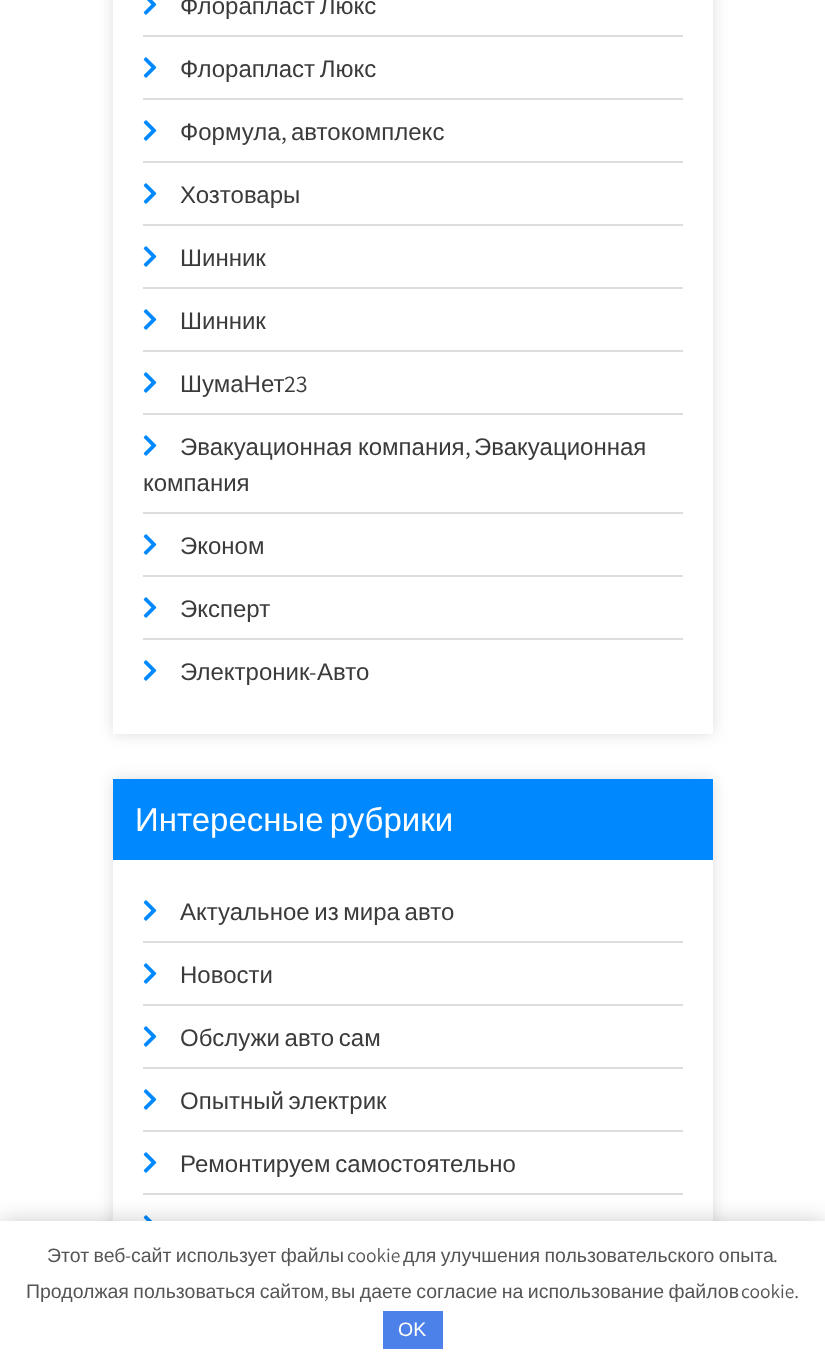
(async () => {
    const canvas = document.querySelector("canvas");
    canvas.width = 825;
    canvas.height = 1366;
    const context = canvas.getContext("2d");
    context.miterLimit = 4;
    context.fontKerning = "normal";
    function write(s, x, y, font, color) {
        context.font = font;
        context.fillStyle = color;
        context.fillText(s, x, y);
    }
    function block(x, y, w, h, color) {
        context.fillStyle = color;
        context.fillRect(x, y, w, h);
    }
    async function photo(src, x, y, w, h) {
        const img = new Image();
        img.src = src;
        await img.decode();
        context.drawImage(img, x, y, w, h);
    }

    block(0, 0, 825, 1366, "rgb(255, 255, 255)");
    context.fillStyle = "rgb(221, 221, 221)";
    context.filter = "blur(7.5px)";
    context.beginPath();
    context.rect(113, -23, 600, 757);
    context.fill();
    context.filter = "none";
    block(113, 0, 600, 734, "rgb(255, 255, 255)");
    block(143, 35, 540, 2, "rgb(221, 221, 221)");
    await photo("media/1.png", 143, 0, 14, 15);
    context.wordSpacing = "-2px";
    write("Флорапласт Люкс", 180, 14, "24px Liberation Sans", "rgb(59, 59, 59)");
    block(143, 98, 540, 2, "rgb(221, 221, 221)");
    await photo("media/2.png", 143, 57, 14, 21);
    write("Флорапласт Люкс", 180, 77, "24px Liberation Sans", "rgb(59, 59, 59)");
    block(143, 161, 540, 2, "rgb(221, 221, 221)");
    await photo("media/2.png", 143, 120, 14, 21);
    context.wordSpacing = "0px";
    write("Формула", 180, 140, "24px Liberation Sans", "rgb(59, 59, 59)");
    write(",", 281, 140, "24px Assistant", "rgb(59, 59, 59)");
    write("автокомплекс", 291, 140, "24px Liberation Sans", "rgb(59, 59, 59)");
    block(143, 224, 540, 2, "rgb(221, 221, 221)");
    await photo("media/2.png", 143, 183, 14, 21);
    write("Хозтовары", 180, 203, "24px Liberation Sans", "rgb(59, 59, 59)");
    block(143, 287, 540, 2, "rgb(221, 221, 221)");
    await photo("media/2.png", 143, 246, 14, 21);
    write("Шинник", 180, 266, "24px Liberation Sans", "rgb(59, 59, 59)");
    block(143, 350, 540, 2, "rgb(221, 221, 221)");
    await photo("media/2.png", 143, 309, 14, 21);
    write("Шинник", 180, 329, "24px Liberation Sans", "rgb(59, 59, 59)");
    block(143, 413, 540, 2, "rgb(221, 221, 221)");
    await photo("media/2.png", 143, 372, 14, 21);
    write("ШумаНет", 180, 392, "24px Liberation Sans", "rgb(59, 59, 59)");
    write("23", 284, 392, "24px Assistant", "rgb(59, 59, 59)");
    block(143, 512, 540, 2, "rgb(221, 221, 221)");
    await photo("media/2.png", 143, 435, 14, 21);
    context.wordSpacing = "-1px";
    write("Эвакуационная компания", 180, 455, "24px Liberation Sans", "rgb(59, 59, 59)");
    context.wordSpacing = "0px";
    write(",", 465, 455, "24px Assistant", "rgb(59, 59, 59)");
    write("Эвакуационная", 474, 455, "24px Liberation Sans", "rgb(59, 59, 59)");
    write("компания", 143, 491, "24px Liberation Sans", "rgb(59, 59, 59)");
    block(143, 575, 540, 2, "rgb(221, 221, 221)");
    await photo("media/2.png", 143, 534, 14, 21);
    write("Эконом", 180, 554, "24px Liberation Sans", "rgb(59, 59, 59)");
    block(143, 638, 540, 2, "rgb(221, 221, 221)");
    await photo("media/2.png", 143, 597, 14, 21);
    write("Эксперт", 180, 617, "24px Liberation Sans", "rgb(59, 59, 59)");
    await photo("media/2.png", 143, 660, 14, 21);
    write("Электроник", 180, 680, "24px Liberation Sans", "rgb(59, 59, 59)");
    write("-", 309, 680, "24px Assistant", "rgb(59, 59, 59)");
    write("Авто", 317, 680, "24px Liberation Sans", "rgb(59, 59, 59)");
    context.fillStyle = "rgb(221, 221, 221)";
    context.filter = "blur(7.5px)";
    context.beginPath();
    context.rect(113, 779, 600, 510);
    context.fill();
    context.filter = "none";
    block(113, 860, 600, 361, "rgb(255, 255, 255)");
    block(113, 779, 600, 81, "rgb(0, 136, 255)");
    context.wordSpacing = "-3px";
    write("Интересные рубрики", 135, 831, "33px Liberation Sans", "rgb(255, 255, 255)");
    block(143, 941, 540, 2, "rgb(221, 221, 221)");
    await photo("media/2.png", 143, 900, 14, 21);
    context.wordSpacing = "-2px";
    write("Актуальное из мира авто", 180, 920, "24px Liberation Sans", "rgb(59, 59, 59)");
    block(143, 1004, 540, 2, "rgb(221, 221, 221)");
    await photo("media/2.png", 143, 963, 14, 21);
    context.wordSpacing = "0px";
    write("Новости", 180, 983, "24px Liberation Sans", "rgb(59, 59, 59)");
    block(143, 1067, 540, 2, "rgb(221, 221, 221)");
    await photo("media/2.png", 143, 1026, 14, 21);
    context.wordSpacing = "-2px";
    write("Обслужи авто сам", 180, 1046, "24px Liberation Sans", "rgb(59, 59, 59)");
    block(143, 1130, 540, 2, "rgb(221, 221, 221)");
    await photo("media/2.png", 143, 1089, 14, 21);
    write("Опытный электрик", 180, 1109, "24px Liberation Sans", "rgb(59, 59, 59)");
    block(143, 1193, 540, 2, "rgb(221, 221, 221)");
    await photo("media/2.png", 143, 1152, 14, 21);
    write("Ремонтируем самостоятельно", 180, 1172, "24px Liberation Sans", "rgb(59, 59, 59)");
    await photo("media/3.png", 143, 1215, 9, 6);
    context.fillStyle = "rgba(0, 0, 0, 0.2)";
    context.filter = "blur(11px)";
    context.beginPath();
    context.rect(0, 1221, 825, 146);
    context.fill();
    context.filter = "none";
    block(0, 1221, 825, 145, "rgb(255, 255, 255)");
    context.wordSpacing = "-1px";
    write("Этот веб", 47, 1262, "19.5px Liberation Sans", "rgb(85, 85, 85)");
    context.wordSpacing = "0px";
    write("-", 125, 1262, "19.5px Assistant", "rgb(85, 85, 85)");
    context.wordSpacing = "-1px";
    write("сайт использует файлы", 131, 1262, "19.5px Liberation Sans", "rgb(85, 85, 85)");
    context.wordSpacing = "0px";
    write("cookie", 347, 1262, "19.5px Assistant", "rgb(85, 85, 85)");
    context.wordSpacing = "-1px";
    write("для улучшения пользовательского опыта", 403, 1262, "19.5px Liberation Sans", "rgb(85, 85, 85)");
    context.wordSpacing = "0px";
    write(".", 773, 1262, "19.5px Assistant", "rgb(85, 85, 85)");
    context.wordSpacing = "-1px";
    write("Продолжая пользоваться сайтом", 26, 1298, "19.5px Liberation Sans", "rgb(85, 85, 85)");
    context.wordSpacing = "0px";
    write(",", 324, 1298, "19.5px Assistant", "rgb(85, 85, 85)");
    context.wordSpacing = "-1px";
    write("вы даете согласие на использование файлов", 331, 1298, "19.5px Liberation Sans", "rgb(85, 85, 85)");
    context.wordSpacing = "0px";
    write("cookie.", 741, 1298, "19.5px Assistant", "rgb(85, 85, 85)");
    block(383, 1311, 60, 38, "rgb(75, 129, 232)");
    write("OK", 398, 1336, "19.5px Liberation Sans", "rgb(255, 255, 255)");
})();
